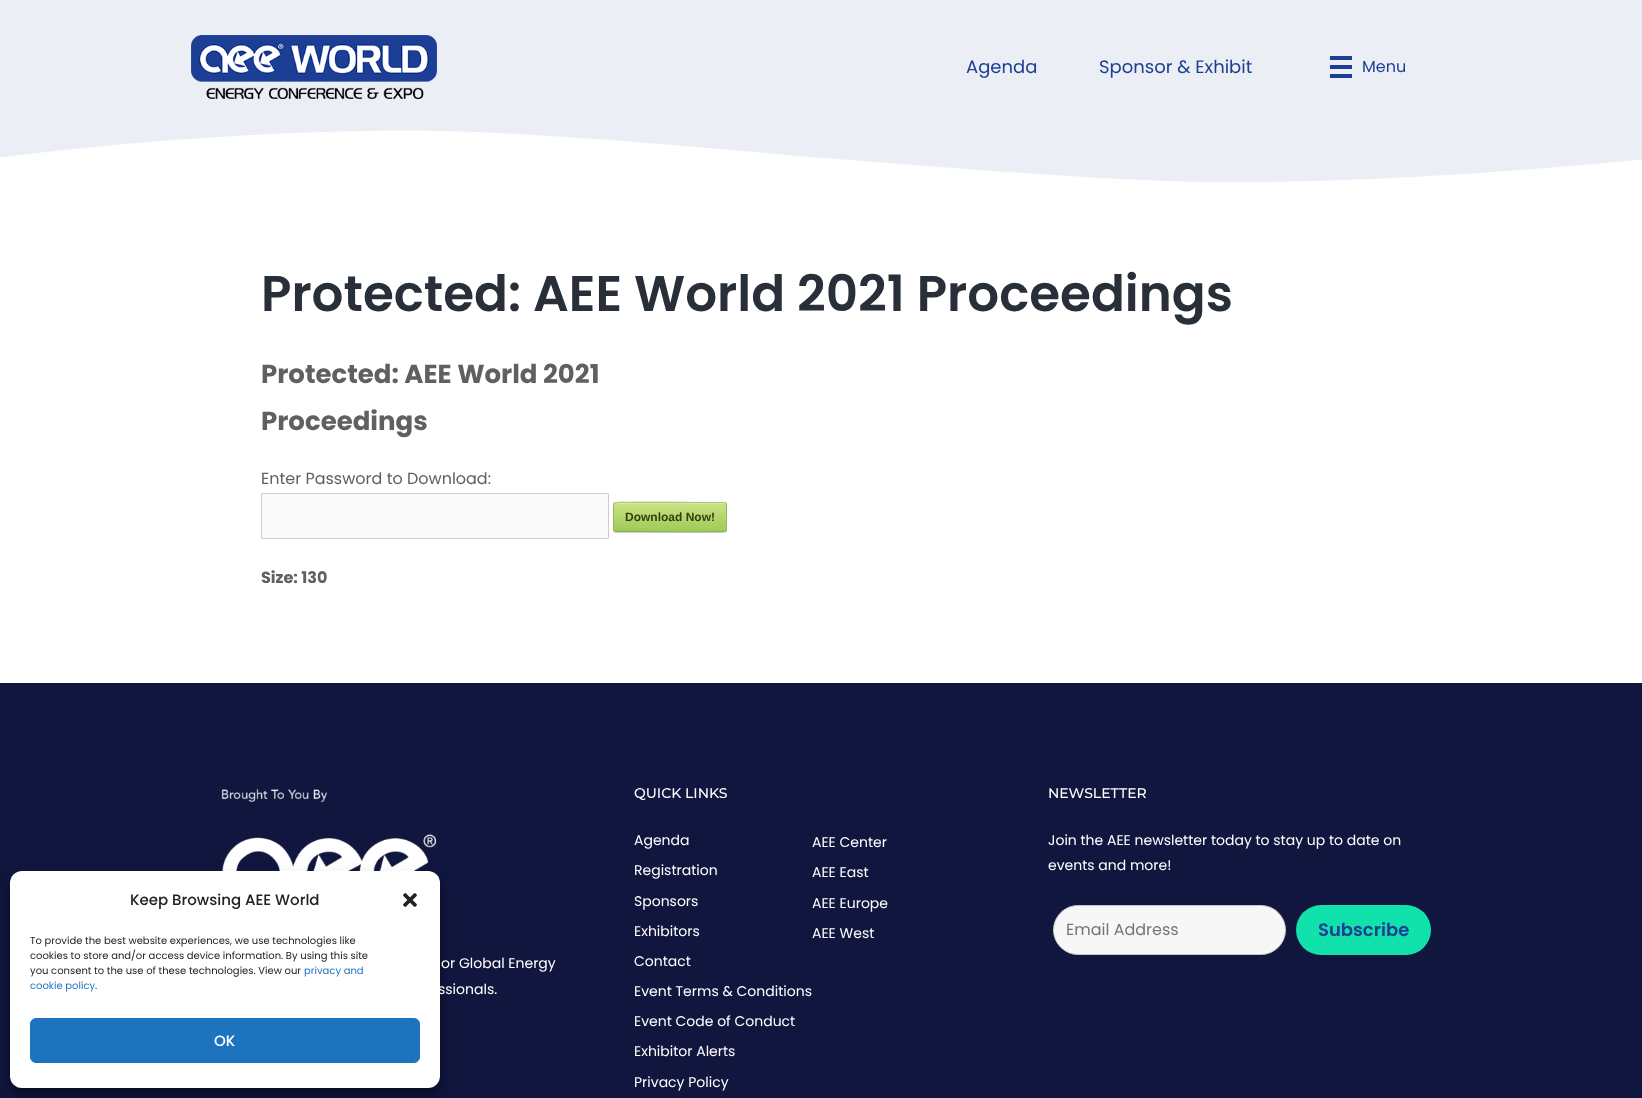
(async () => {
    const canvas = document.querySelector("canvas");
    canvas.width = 1642;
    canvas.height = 1098;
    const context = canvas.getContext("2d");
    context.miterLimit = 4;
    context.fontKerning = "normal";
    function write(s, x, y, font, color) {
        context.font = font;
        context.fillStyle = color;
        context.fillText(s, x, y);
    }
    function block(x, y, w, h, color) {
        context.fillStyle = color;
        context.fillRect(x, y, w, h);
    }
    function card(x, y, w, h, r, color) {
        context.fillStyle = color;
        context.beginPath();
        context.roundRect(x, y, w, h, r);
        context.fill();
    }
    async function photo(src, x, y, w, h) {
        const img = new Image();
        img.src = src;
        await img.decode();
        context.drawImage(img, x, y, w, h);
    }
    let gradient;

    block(0, 0, 1642, 1098, "rgb(255, 255, 255)");
    block(0, 0, 1642, 186, "rgb(235, 238, 244)");
    await photo("media/1.png", 191, 35, 246, 64);
    write("Agenda", 966, 73, "18px Poppins", "rgb(28, 63, 148)");
    write("Sponsor & Exhibit", 1099, 73, "18px Poppins", "rgb(28, 63, 148)");
    block(1330, 56, 22, 4, "rgb(28, 63, 148)");
    block(1330, 65, 22, 4, "rgb(28, 63, 148)");
    block(1330, 74, 22, 4, "rgb(28, 63, 148)");
    write("Menu", 1362, 72, "16px Poppins", "rgb(28, 63, 148)");
    await photo("media/2.png", 0, 130, 1642, 59);
    write("Protected: AEE World 2021 Proceedings", 261, 311, "600 50px Poppins", "rgb(40, 47, 56)");
    write("Protected: AEE World 2021", 261, 383, "bold 26px Poppins", "rgb(96, 96, 96)");
    write("Proceedings", 261, 430, "bold 26px Poppins", "rgb(96, 96, 96)");
    write("Enter Password to Download:", 261, 484, "16px Poppins", "rgb(96, 96, 96)");
    context.fillStyle = "rgb(250, 250, 250)";
    context.beginPath();
    context.rect(261.5, 493.5, 347, 45);
    context.fill();
    context.strokeStyle = "rgb(204, 204, 204)";
    context.stroke();
    context.fillStyle = "rgb(211, 211, 211)";
    context.filter = "blur(0.5px)";
    context.beginPath();
    context.roundRect(613, 503, 114, 30, 3);
    context.fill();
    context.filter = "none";
    context.save();
    context.beginPath();
    context.roundRect(613, 502, 114, 30, 3);
    context.clip();
    gradient = context.createLinearGradient(614, 475, 614, 503);
    gradient.addColorStop(0, "rgb(202, 226, 133)");
    gradient.addColorStop(1, "rgb(159, 203, 87)");
    context.fillStyle = gradient;
    context.fillRect(613, 502, 114, 1);
    gradient = context.createLinearGradient(614, 503, 614, 531);
    gradient.addColorStop(0, "rgb(202, 226, 133)");
    gradient.addColorStop(1, "rgb(159, 203, 87)");
    context.fillStyle = gradient;
    context.fillRect(613, 503, 114, 28);
    gradient = context.createLinearGradient(614, 531, 614, 559);
    gradient.addColorStop(0, "rgb(202, 226, 133)");
    gradient.addColorStop(1, "rgb(159, 203, 87)");
    context.fillStyle = gradient;
    context.fillRect(613, 531, 114, 1);
    context.restore();
    context.fillStyle = "rgb(215, 233, 164)";
    context.beginPath();
    context.moveTo(616, 504);
    context.lineTo(724, 504);
    context.bezierCurveTo(725, 504, 726, 505, 726, 506);
    context.bezierCurveTo(726, 505, 726, 503, 724, 503);
    context.lineTo(634, 503);
    context.bezierCurveTo(634, 503, 614, 498, 614, 506);
    context.bezierCurveTo(614, 505, 615, 504, 616, 504);
    context.closePath();
    context.fill();
    context.beginPath();
    context.moveTo(614, 503);
    context.lineTo(614.5, 503);
    context.bezierCurveTo(616.5, 501.5, 697, 502.5, 706, 502.5);
    context.lineTo(724, 502.5);
    context.lineTo(726, 503);
    context.strokeStyle = "rgb(173, 198, 113)";
    context.stroke();
    context.beginPath();
    context.moveTo(726, 503);
    context.bezierCurveTo(726, 503.5, 726.5, 504.5, 726.5, 505);
    context.lineTo(726.5, 529);
    context.bezierCurveTo(726.5, 529.5, 726, 530.5, 726, 531);
    context.strokeStyle = "rgb(152, 182, 91)";
    context.stroke();
    context.beginPath();
    context.moveTo(726, 531);
    context.lineTo(725.5, 531);
    context.bezierCurveTo(723.5, 532.5, 643, 531.5, 634, 531.5);
    context.lineTo(616, 531.5);
    context.lineTo(614, 531);
    context.strokeStyle = "rgb(135, 170, 74)";
    context.stroke();
    context.beginPath();
    context.moveTo(614, 531);
    context.bezierCurveTo(614, 530.5, 613.5, 529.5, 613.5, 529);
    context.lineTo(613.5, 505);
    context.bezierCurveTo(613.5, 504.5, 614, 503.5, 614, 503);
    context.strokeStyle = "rgb(152, 182, 91)";
    context.stroke();
    write("Download Now!", 625, 521, "bold 12px Liberation Sans", "rgb(47, 64, 20)");
    write("Size: 130", 261, 583, "bold 16px Poppins", "rgb(96, 96, 96)");
    block(0, 683, 1642, 415, "rgb(16, 22, 62)");
    await photo("media/4.png", 221, 788, 215, 83);
    context.fillStyle = "rgba(0, 0, 0, 0.23)";
    context.filter = "blur(3px)";
    context.beginPath();
    context.roundRect(10, 877, 430, 217, 12);
    context.fill();
    context.filter = "none";
    context.fillStyle = "rgba(0, 0, 0, 0.19)";
    context.filter = "blur(10px)";
    context.beginPath();
    context.roundRect(10, 881, 430, 217, 12);
    context.fill();
    context.filter = "none";
    card(10, 871, 430, 217, 12, "rgb(255, 255, 255)");
    write("Keep Browsing AEE World", 130, 905, "500 15px Poppins", "rgb(34, 34, 34)");
    await photo("media/3.png", 403, 893, 14, 14);
    write("To provide the best website experiences, we use technologies like", 30, 944, "10px Poppins", "rgb(34, 34, 34)");
    write("cookies to store and/or access device information. By using this site", 30, 959, "10px Poppins", "rgb(34, 34, 34)");
    write("you consent to the use of these technologies. View our", 30, 974, "10px Poppins", "rgb(34, 34, 34)");
    write("privacy and", 304, 974, "10px Poppins", "rgb(30, 115, 190)");
    write("cookie policy", 30, 989, "10px Poppins", "rgb(30, 115, 190)");
    write(".", 95, 989, "10px Poppins", "rgb(34, 34, 34)");
    context.fillStyle = "rgb(30, 115, 190)";
    context.beginPath();
    context.roundRect(30.5, 1018.5, 389, 44, 5.5);
    context.fill();
    context.strokeStyle = "rgb(30, 115, 190)";
    context.stroke();
    write("OK", 214, 1046, "500 15px Poppins", "rgb(255, 255, 255)");
    write("QUICK LINKS", 634, 798, "500 14px Montserrat", "rgb(255, 255, 255)");
    write("Agenda", 634, 845, "14px Poppins", "rgb(255, 255, 255)");
    write("Registration", 634, 875, "14px Poppins", "rgb(255, 255, 255)");
    write("Sponsors", 634, 906, "14px Poppins", "rgb(255, 255, 255)");
    write("Exhibitors", 634, 936, "14px Poppins", "rgb(255, 255, 255)");
    write("Contact", 634, 966, "14px Poppins", "rgb(255, 255, 255)");
    write("Event Terms & Conditions", 634, 996, "14px Poppins", "rgb(255, 255, 255)");
    write("Event Code of Conduct", 634, 1026, "14px Poppins", "rgb(255, 255, 255)");
    write("Exhibitor Alerts", 634, 1056, "14px Poppins", "rgb(255, 255, 255)");
    write("Privacy Policy", 634, 1087, "14px Poppins", "rgb(255, 255, 255)");
    write("AEE Center", 812, 847, "14px Poppins", "rgb(255, 255, 255)");
    write("AEE East", 812, 877, "14px Poppins", "rgb(255, 255, 255)");
    write("AEE Europe", 812, 908, "14px Poppins", "rgb(255, 255, 255)");
    write("AEE West", 812, 938, "14px Poppins", "rgb(255, 255, 255)");
    write("NEWSLETTER", 1048, 798, "500 14px Montserrat", "rgb(255, 255, 255)");
    write("Join the AEE newsletter today to stay up to date on", 1048, 845, "14px Poppins", "rgb(255, 255, 255)");
    write("events and more!", 1048, 870, "14px Poppins", "rgb(255, 255, 255)");
    context.fillStyle = "rgb(247, 247, 247)";
    context.beginPath();
    context.roundRect(1053.5, 905.5, 232, 49, 24.5);
    context.fill();
    context.strokeStyle = "rgb(196, 196, 196)";
    context.stroke();
    write("Email Address", 1066, 935, "16px Poppins", "rgb(117, 117, 117)");
    card(1296, 905, 135, 50, 25, "rgb(17, 226, 171)");
    write("Subscribe", 1318, 936, "600 18px Poppins", "rgb(28, 63, 148)");
    write("or Global Energy", 441, 968, "14px Poppins", "rgb(255, 255, 255)");
    write("ssionals.", 438, 994, "14px Poppins", "rgb(255, 255, 255)");
})();
